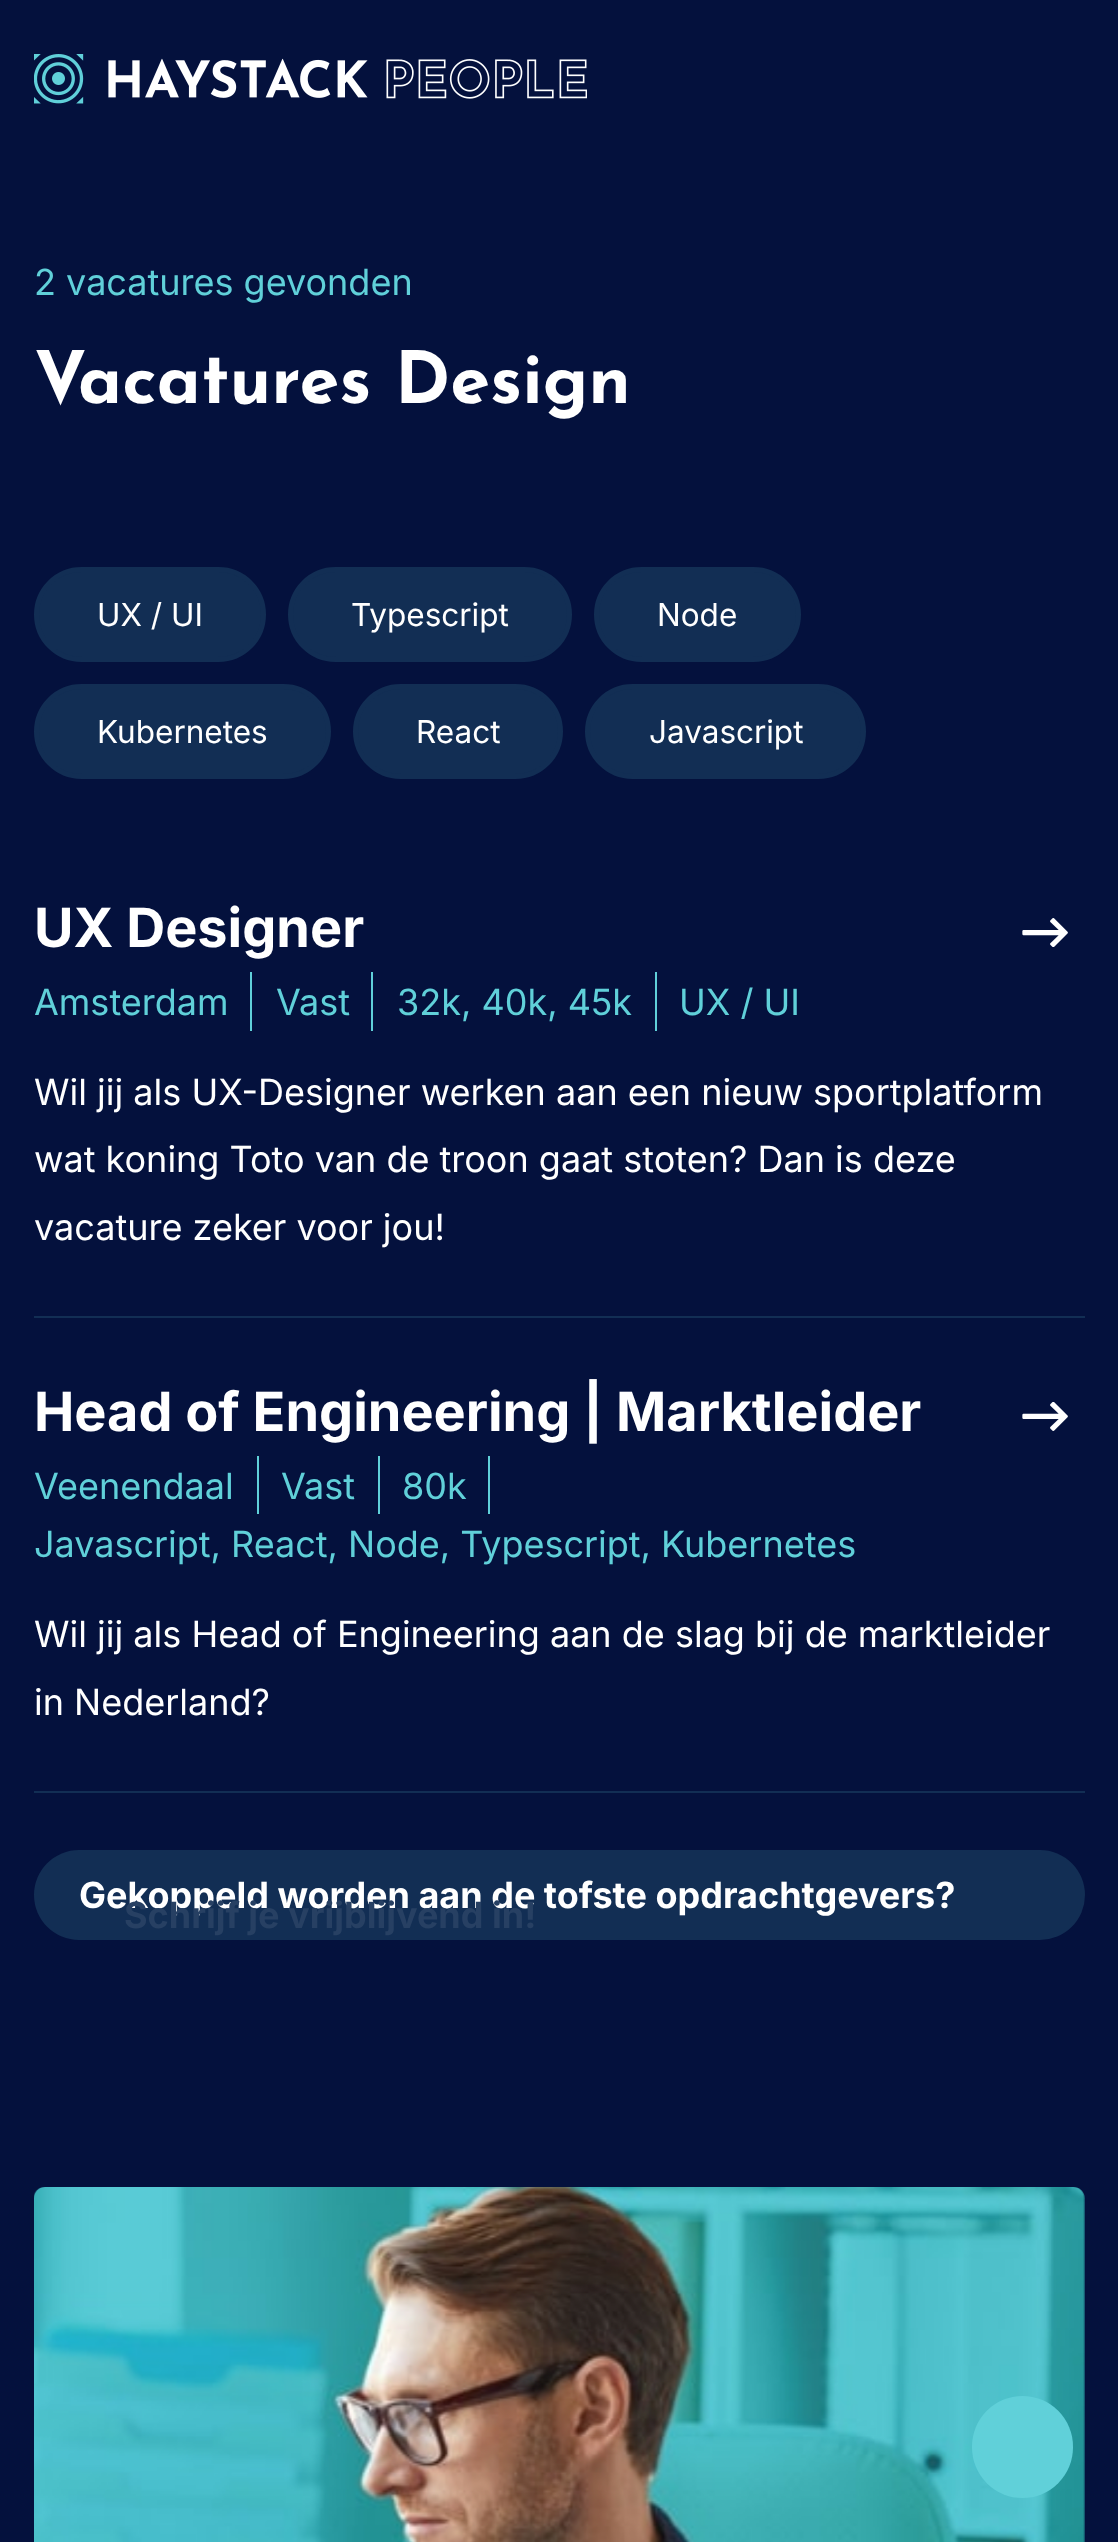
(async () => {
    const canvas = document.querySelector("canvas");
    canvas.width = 1118;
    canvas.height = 2542;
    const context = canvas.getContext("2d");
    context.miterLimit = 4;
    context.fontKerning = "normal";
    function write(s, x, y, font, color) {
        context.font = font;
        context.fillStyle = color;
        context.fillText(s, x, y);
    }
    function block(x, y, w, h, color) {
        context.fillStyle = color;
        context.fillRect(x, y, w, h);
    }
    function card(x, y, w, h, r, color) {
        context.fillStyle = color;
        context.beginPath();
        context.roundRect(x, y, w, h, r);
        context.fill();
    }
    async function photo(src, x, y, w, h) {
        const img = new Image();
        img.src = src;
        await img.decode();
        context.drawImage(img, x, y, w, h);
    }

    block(0, 0, 1118, 2542, "rgb(4, 17, 61)");
    await photo("media/1.png", 34, 54, 553, 50);
    write("2 vacatures gevonden", 34, 295, "36px Inter", "rgb(96, 208, 217)");
    write("Vacatures Design", 34, 403, "bold 72px Josefin Sans", "rgb(255, 255, 255)");
    context.fillStyle = "rgb(18, 46, 84)";
    context.beginPath();
    context.roundRect(36.5, 569.5, 227, 90, 45);
    context.fill();
    context.strokeStyle = "rgb(18, 46, 84)";
    context.lineWidth = 5;
    context.stroke();
    write("UX / UI", 97, 626, "31.5px Inter", "rgb(255, 255, 255)");
    context.fillStyle = "rgb(18, 46, 84)";
    context.beginPath();
    context.roundRect(290.5, 569.5, 279, 90, 45);
    context.fill();
    context.stroke();
    write("Typescript", 351, 626, "31.5px Inter", "rgb(255, 255, 255)");
    context.fillStyle = "rgb(18, 46, 84)";
    context.beginPath();
    context.roundRect(596.5, 569.5, 202, 90, 45);
    context.fill();
    context.stroke();
    write("Node", 657, 626, "31.5px Inter", "rgb(255, 255, 255)");
    context.fillStyle = "rgb(18, 46, 84)";
    context.beginPath();
    context.roundRect(36.5, 686.5, 292, 90, 45);
    context.fill();
    context.stroke();
    write("Kubernetes", 97, 743, "31.5px Inter", "rgb(255, 255, 255)");
    context.fillStyle = "rgb(18, 46, 84)";
    context.beginPath();
    context.roundRect(355.5, 686.5, 205, 90, 45);
    context.fill();
    context.stroke();
    write("React", 416, 743, "31.5px Inter", "rgb(255, 255, 255)");
    context.fillStyle = "rgb(18, 46, 84)";
    context.beginPath();
    context.roundRect(587.5, 686.5, 276, 90, 45);
    context.fill();
    context.stroke();
    write("Javascript", 649, 743, "31.5px Inter", "rgb(255, 255, 255)");
    block(34, 1316, 1051, 2, "rgb(18, 46, 84)");
    write("UX Designer", 34, 947, "bold 54px Inter", "rgb(255, 255, 255)");
    await photo("media/2.png", 1022, 918, 46, 29);
    block(250, 972, 2, 59, "rgb(96, 208, 217)");
    write("Amsterdam", 34, 1015, "36px Inter", "rgb(96, 208, 217)");
    block(371, 972, 2, 59, "rgb(96, 208, 217)");
    write("Vast", 276, 1015, "36px Inter", "rgb(96, 208, 217)");
    block(655, 972, 2, 59, "rgb(96, 208, 217)");
    write("32k, 40k, 45k", 397, 1015, "36px Inter", "rgb(96, 208, 217)");
    write("UX / UI", 679, 1015, "36px Inter", "rgb(96, 208, 217)");
    write("Wil jij als UX-Designer werken aan een nieuw sportplatform", 34, 1105, "36px Inter", "rgb(255, 255, 255)");
    write("wat koning Toto van de troon gaat stoten? Dan is deze", 34, 1172, "36px Inter", "rgb(255, 255, 255)");
    write("vacature zeker voor jou!", 34, 1240, "36px Inter", "rgb(255, 255, 255)");
    block(34, 1791, 1051, 2, "rgb(18, 46, 84)");
    write("Head of Engineering | Marktleider", 34, 1431, "bold 54px Inter", "rgb(255, 255, 255)");
    await photo("media/3.png", 1022, 1402, 46, 29);
    block(257, 1456, 2, 58, "rgb(96, 208, 217)");
    write("Veenendaal", 34, 1499, "36px Inter", "rgb(96, 208, 217)");
    block(378, 1456, 2, 58, "rgb(96, 208, 217)");
    write("Vast", 281, 1499, "36px Inter", "rgb(96, 208, 217)");
    block(488, 1456, 2, 58, "rgb(96, 208, 217)");
    write("80k", 402, 1499, "36px Inter", "rgb(96, 208, 217)");
    write("Javascript, React, Node, Typescript, Kubernetes", 34, 1557, "36px Inter", "rgb(96, 208, 217)");
    write("Wil jij als Head of Engineering aan de slag bij de marktleider", 34, 1647, "36px Inter", "rgb(255, 255, 255)");
    write("in Nederland?", 34, 1715, "36px Inter", "rgb(255, 255, 255)");
    card(34, 1850, 1051, 90, 45, "rgb(18, 46, 84)");
    write("Gekoppeld worden aan de tofste opdrachtgevers?", 79, 1908, "bold 36px Inter", "rgb(255, 255, 255)");
    write("Schrijf je vrijblijvend in!", 124, 1928, "bold 36px Inter", "rgb(39, 64, 99)");
    await photo("media/4.png", 34, 2187, 1051, 355);
    card(972, 2396, 101, 102, 50.5, "rgb(96, 208, 217)");
})();
